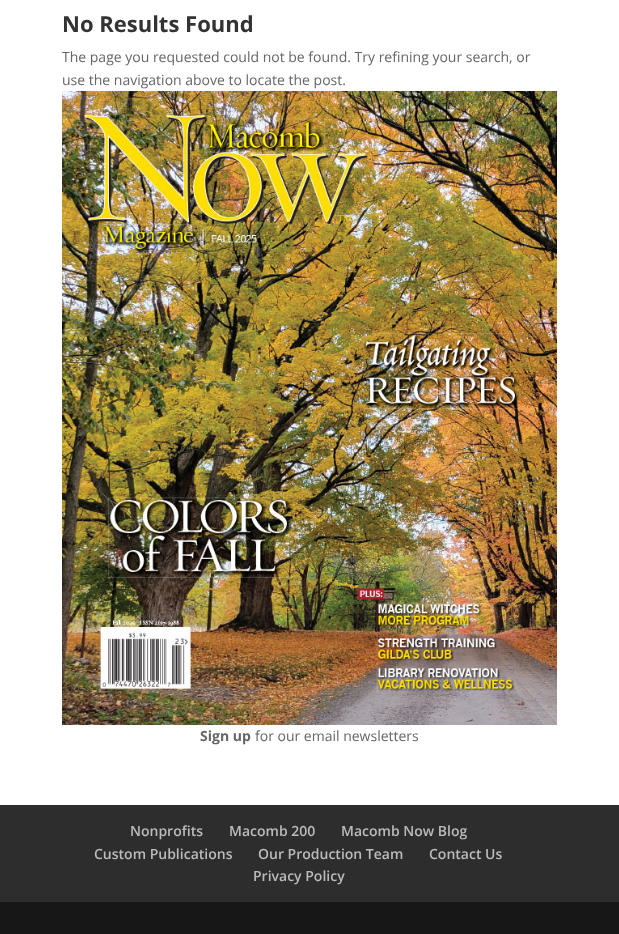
(async () => {
    const canvas = document.querySelector("canvas");
    canvas.width = 619;
    canvas.height = 934;
    const context = canvas.getContext("2d");
    context.miterLimit = 4;
    context.fontKerning = "normal";
    function write(s, x, y, font, color) {
        context.font = font;
        context.fillStyle = color;
        context.fillText(s, x, y);
    }
    function block(x, y, w, h, color) {
        context.fillStyle = color;
        context.fillRect(x, y, w, h);
    }
    async function photo(src, x, y, w, h) {
        const img = new Image();
        img.src = src;
        await img.decode();
        context.drawImage(img, x, y, w, h);
    }

    block(0, 0, 619, 934, "rgb(255, 255, 255)");
    write("No Results Found", 62, 32, "bold 22px Open Sans", "rgb(51, 51, 51)");
    write("The page you requested could not be found. Try refining your search, or", 62, 62, "14px Open Sans", "rgb(102, 102, 102)");
    write("use the navigation above to locate the post.", 62, 85, "14px Open Sans", "rgb(102, 102, 102)");
    await photo("media/1.png", 62, 91, 495, 634);
    write("Sign up", 200, 741, "bold 14px Open Sans", "rgb(102, 102, 102)");
    write("for our email newsletters", 255, 741, "14px Open Sans", "rgb(102, 102, 102)");
    block(0, 805, 619, 97, "rgb(45, 45, 45)");
    write("Nonprofits", 130, 836, "600 14px Open Sans", "rgb(187, 187, 187)");
    write("Macomb 200", 229, 836, "600 14px Open Sans", "rgb(187, 187, 187)");
    write("Macomb Now Blog", 341, 836, "600 14px Open Sans", "rgb(187, 187, 187)");
    write("Custom Publications", 94, 859, "600 14px Open Sans", "rgb(187, 187, 187)");
    write("Our Production Team", 258, 859, "600 14px Open Sans", "rgb(187, 187, 187)");
    write("Contact Us", 429, 859, "600 14px Open Sans", "rgb(187, 187, 187)");
    write("Privacy Policy", 253, 881, "600 14px Open Sans", "rgb(187, 187, 187)");
    block(0, 902, 619, 32, "rgb(23, 23, 23)");
})();
